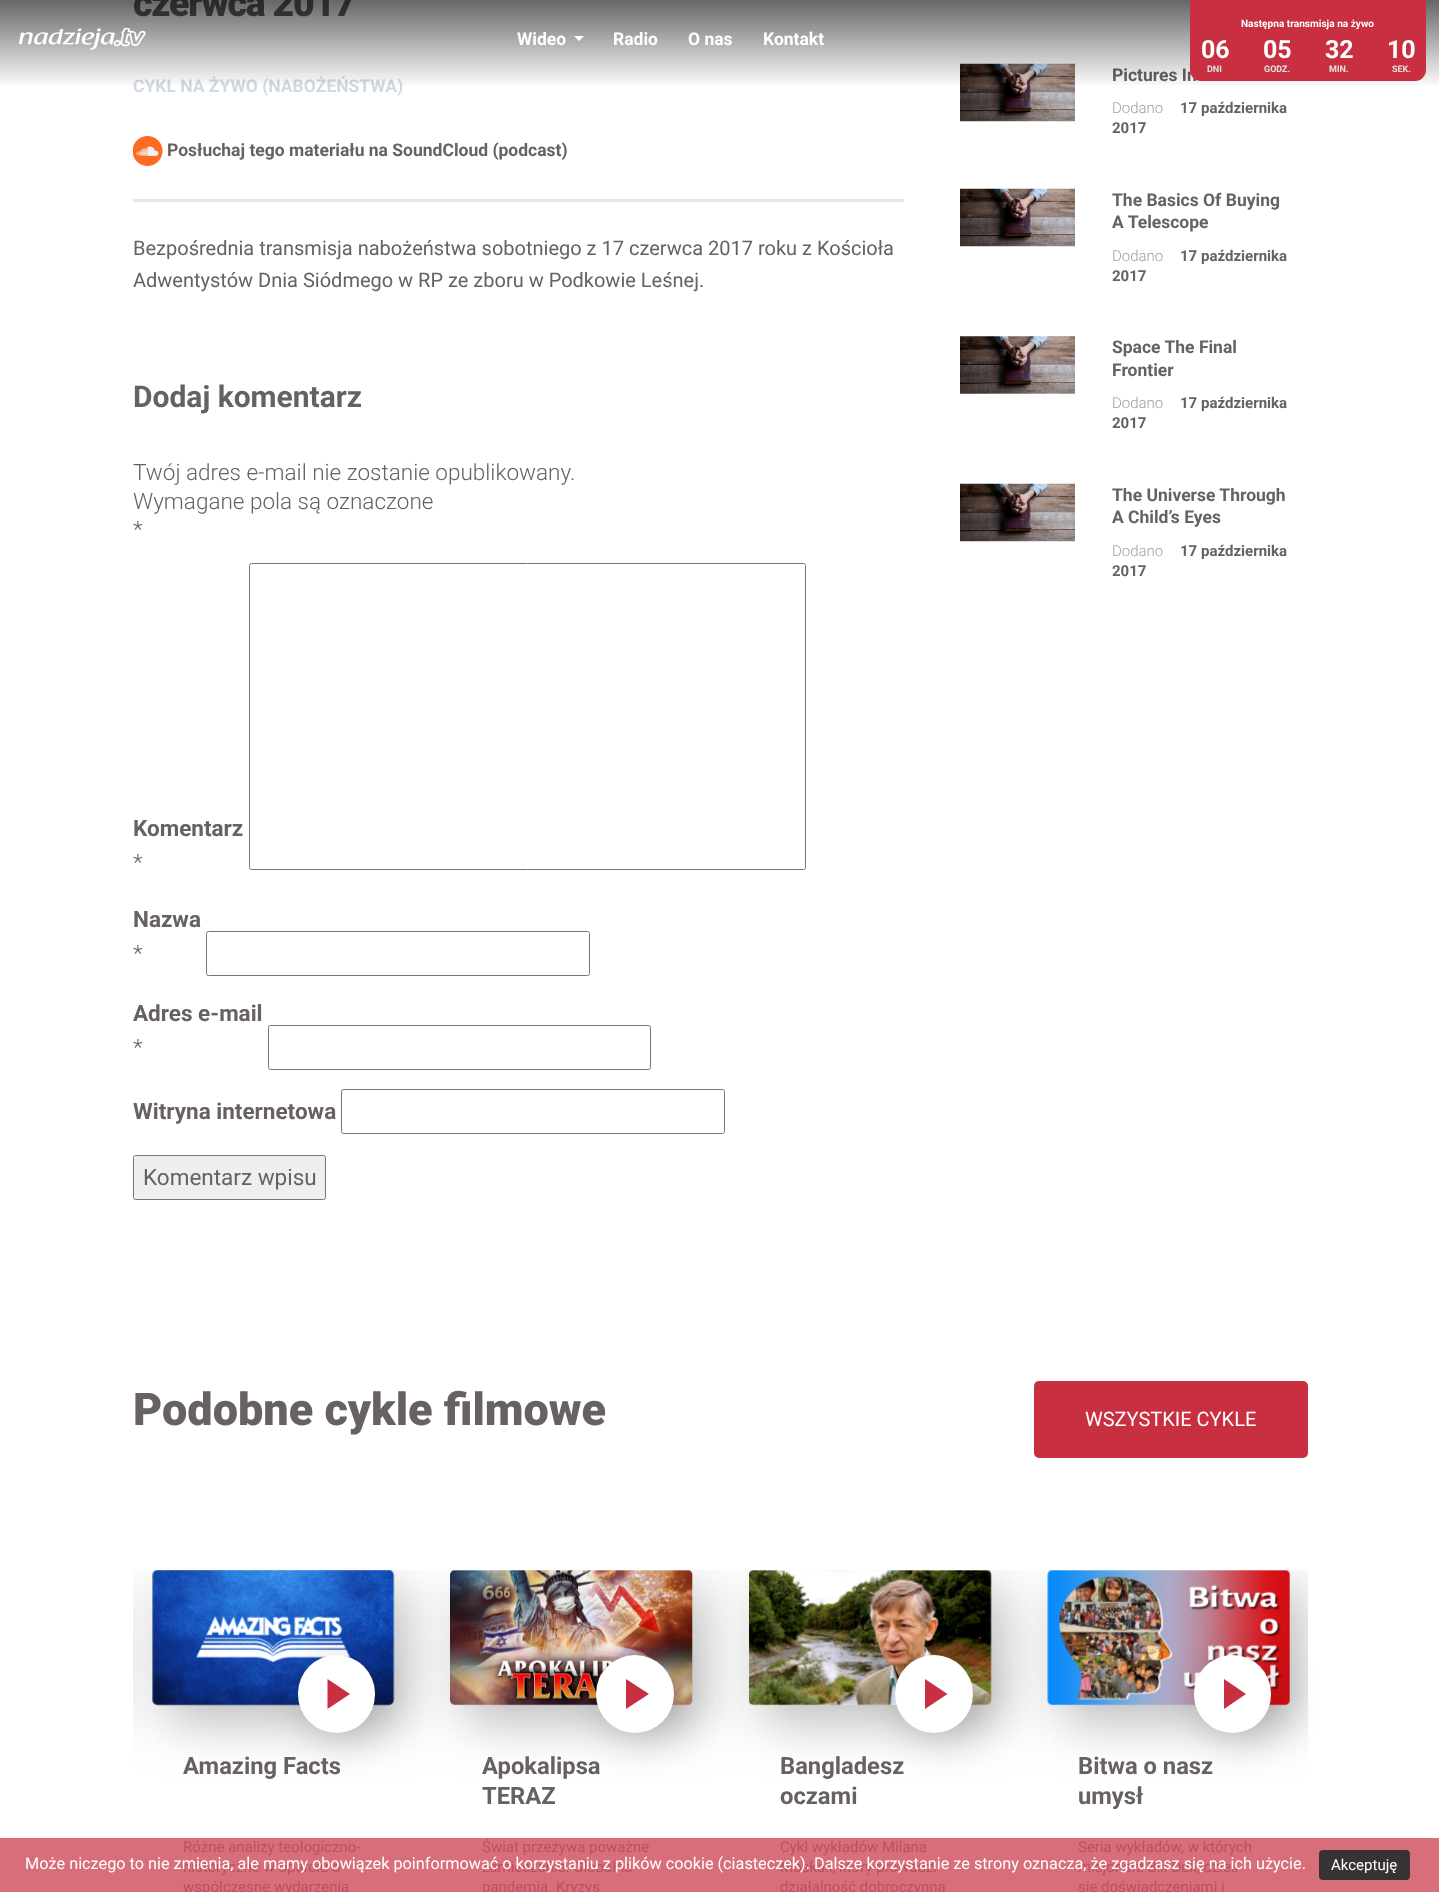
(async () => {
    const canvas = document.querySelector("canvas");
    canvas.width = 1439;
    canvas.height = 1892;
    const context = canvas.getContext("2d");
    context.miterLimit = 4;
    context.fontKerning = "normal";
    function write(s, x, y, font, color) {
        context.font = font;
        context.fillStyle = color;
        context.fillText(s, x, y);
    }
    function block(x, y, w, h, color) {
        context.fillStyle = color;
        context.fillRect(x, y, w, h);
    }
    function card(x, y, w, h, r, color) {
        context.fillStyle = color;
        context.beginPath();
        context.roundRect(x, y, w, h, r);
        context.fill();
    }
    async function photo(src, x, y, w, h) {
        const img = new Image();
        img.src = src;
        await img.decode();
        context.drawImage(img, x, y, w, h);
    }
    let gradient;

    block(0, 0, 1439, 1892, "rgb(255, 255, 255)");
    block(0, 1838, 1439, 54, "rgb(217, 110, 123)");
    block(133, 199, 771, 3, "rgb(231, 231, 231)");
    context.letterSpacing = "-1.25px";
    write("czerwca 2017", 133, 16, "900 37.5px Roboto", "rgb(103, 97, 97)");
    context.letterSpacing = "0px";
    write("CYKL NA ŻYWO (NABOŻEŃSTWA)", 133, 92, "bold 17.5px Roboto", "rgb(209, 217, 225)");
    await photo("media/1.png", 133, 136, 30, 30);
    write("Posłuchaj tego materiału na SoundCloud (podcast)", 167, 156, "bold 17.5px Roboto", "rgb(103, 97, 97)");
    write("Bezpośrednia transmisja nabożeństwa sobotniego z 17 czerwca 2017 roku z Kościoła", 133, 255, "20px Roboto", "rgb(103, 97, 97)");
    write("Adwentystów Dnia Siódmego w RP ze zboru w Podkowie Leśnej.", 133, 287, "20px Roboto", "rgb(103, 97, 97)");
    write("Dodaj komentarz", 133, 407, "bold 30px Roboto", "rgb(103, 97, 97)");
    write("Twój adres e-mail nie zostanie opublikowany.", 133, 480, "300 22.5px Roboto", "rgb(103, 97, 97)");
    write("Wymagane pola są oznaczone", 133, 509, "300 22.5px Roboto", "rgb(103, 97, 97)");
    write("*", 133, 537, "300 22.5px Roboto", "rgb(103, 97, 97)");
    write("Komentarz", 133, 836, "bold 22.5px Roboto", "rgb(103, 97, 97)");
    write("*", 133, 870, "300 22.5px Roboto", "rgb(103, 97, 97)");
    context.beginPath();
    context.roundRect(249.5, 563.5, 556, 306, 2);
    context.strokeStyle = "rgb(118, 118, 118)";
    context.stroke();
    write("Nazwa", 133, 927, "bold 22.5px Roboto", "rgb(103, 97, 97)");
    write("*", 133, 961, "300 22.5px Roboto", "rgb(103, 97, 97)");
    context.beginPath();
    context.roundRect(206.5, 931.5, 383, 44, 2);
    context.stroke();
    write("Adres e-mail", 133, 1021, "bold 22.5px Roboto", "rgb(103, 97, 97)");
    write("*", 133, 1055, "300 22.5px Roboto", "rgb(103, 97, 97)");
    context.beginPath();
    context.roundRect(268.5, 1025.5, 382, 44, 2);
    context.stroke();
    write("Witryna internetowa", 133, 1119, "bold 22.5px Roboto", "rgb(103, 97, 97)");
    context.beginPath();
    context.roundRect(341.5, 1089.5, 383, 44, 2);
    context.stroke();
    context.fillStyle = "rgb(239, 239, 239)";
    context.beginPath();
    context.roundRect(133.5, 1155.5, 192, 44, 2);
    context.fill();
    context.stroke();
    write("Komentarz wpisu", 143, 1185, "22.5px Roboto", "rgb(103, 97, 97)");
    await photo("media/2.png", 960, 63, 115, 59);
    write("Pictures In", 1112, 81, "bold 17.5px Roboto", "rgb(103, 97, 97)");
    write("Dodano", 1112, 113, "300 15px Roboto", "rgb(158, 158, 158)");
    write("17 października", 1180, 113, "bold 15px Roboto", "rgb(103, 97, 97)");
    write("2017", 1112, 133, "bold 15px Roboto", "rgb(103, 97, 97)");
    await photo("media/2.png", 960, 188, 115, 59);
    write("The Basics Of Buying", 1112, 206, "bold 17.5px Roboto", "rgb(103, 97, 97)");
    write("A Telescope", 1112, 228, "bold 17.5px Roboto", "rgb(103, 97, 97)");
    write("Dodano", 1112, 261, "300 15px Roboto", "rgb(158, 158, 158)");
    write("17 października", 1180, 261, "bold 15px Roboto", "rgb(103, 97, 97)");
    write("2017", 1112, 281, "bold 15px Roboto", "rgb(103, 97, 97)");
    await photo("media/3.png", 960, 336, 115, 58);
    write("Space The Final", 1112, 353, "bold 17.5px Roboto", "rgb(103, 97, 97)");
    write("Frontier", 1112, 376, "bold 17.5px Roboto", "rgb(103, 97, 97)");
    write("Dodano", 1112, 408, "300 15px Roboto", "rgb(158, 158, 158)");
    write("17 października", 1180, 408, "bold 15px Roboto", "rgb(103, 97, 97)");
    write("2017", 1112, 428, "bold 15px Roboto", "rgb(103, 97, 97)");
    await photo("media/2.png", 960, 483, 115, 59);
    write("The Universe Through", 1112, 501, "bold 17.5px Roboto", "rgb(103, 97, 97)");
    write("A Child’s Eyes", 1112, 523, "bold 17.5px Roboto", "rgb(103, 97, 97)");
    write("Dodano", 1112, 556, "300 15px Roboto", "rgb(158, 158, 158)");
    write("17 października", 1180, 556, "bold 15px Roboto", "rgb(103, 97, 97)");
    write("2017", 1112, 576, "bold 15px Roboto", "rgb(103, 97, 97)");
    gradient = context.createLinearGradient(720, 0, 720, 88);
    gradient.addColorStop(0, "rgba(0, 0, 0, 0.6)");
    gradient.addColorStop(1, "rgba(0, 0, 0, 0)");
    context.fillStyle = gradient;
    context.fillRect(0, 0, 1439, 85);
    await photo("media/4.png", 19, 28, 127, 22);
    write("Wideo", 517, 45, "bold 17.5px Roboto", "rgb(255, 255, 255)");
    context.beginPath();
    context.moveTo(574, 36);
    context.lineTo(584, 36);
    context.lineTo(579, 41);
    context.closePath();
    context.fill();
    write("Radio", 613, 45, "bold 17.5px Roboto", "rgb(255, 255, 255)");
    write("O nas", 688, 45, "bold 17.5px Roboto", "rgb(255, 255, 255)");
    write("Kontakt", 763, 45, "bold 17.5px Roboto", "rgb(255, 255, 255)");
    context.fillStyle = "rgb(200, 48, 66)";
    context.beginPath();
    context.roundRect(1190, 0, 236, 81, [0, 0, 11, 11]);
    context.fill();
    write("Następna transmisja na żywo", 1241, 27, "bold 10.1px Roboto", "rgb(255, 255, 255)");
    write("06", 1201, 58, "bold 25px Roboto", "rgb(255, 255, 255)");
    write("05", 1263, 58, "bold 25px Roboto", "rgb(255, 255, 255)");
    write("32", 1325, 58, "bold 25px Roboto", "rgb(255, 255, 255)");
    write("10", 1387, 58, "bold 25px Roboto", "rgb(255, 255, 255)");
    write("DNI", 1207, 72, "bold 9px Roboto", "rgb(224, 224, 224)");
    write("GODZ.", 1264, 72, "bold 9px Roboto", "rgb(224, 224, 224)");
    write("MIN.", 1329, 72, "bold 9px Roboto", "rgb(224, 224, 224)");
    write("SEK.", 1392, 72, "bold 9px Roboto", "rgb(224, 224, 224)");
    write("Podobne cykle filmowe", 133, 1425, "900 45px Roboto", "rgb(103, 97, 97)");
    card(1034, 1381, 274, 77, 5, "rgb(200, 48, 66)");
    write("WSZYSTKIE CYKLE", 1085, 1426, "20px Roboto", "rgb(255, 255, 255)");
    context.save();
    context.beginPath();
    context.rect(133, 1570, 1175, 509);
    context.clip();
    context.fillStyle = "rgba(158, 158, 158, 0.68)";
    context.filter = "blur(25px)";
    context.beginPath();
    context.roundRect(-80, 1588, 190, 135, 5);
    context.fill();
    context.filter = "none";
    context.filter = "blur(25px)";
    context.beginPath();
    context.roundRect(166, 1588, 242, 135, 5);
    context.fill();
    context.filter = "none";
    context.restore();
    await photo("media/5.png", 152, 1570, 243, 136);
    context.fillStyle = "rgba(0, 0, 0, 0.2)";
    context.filter = "blur(20.5px)";
    context.beginPath();
    context.roundRect(306, 1664, 78, 77, 38.5);
    context.fill();
    context.filter = "none";
    card(298, 1655, 77, 78, 38.5, "rgb(255, 255, 255)");
    context.fillStyle = "rgb(200, 48, 66)";
    context.beginPath();
    context.moveTo(327.5, 1709);
    context.lineTo(327.5, 1679);
    context.lineTo(350, 1694);
    context.closePath();
    context.fill();
    write("Amazing Facts", 183, 1774, "bold 23.75px Roboto", "rgb(103, 97, 97)");
    write("Różne analizy teologiczno-", 183, 1852, "15px Roboto", "rgb(187, 81, 94)");
    write("historyczne w oparciu o", 183, 1872, "15px Roboto", "rgb(187, 81, 94)");
    write("współczesne wydarzenia", 183, 1892, "15px Roboto", "rgb(187, 81, 94)");
    context.save();
    context.beginPath();
    context.rect(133, 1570, 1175, 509);
    context.clip();
    context.fillStyle = "rgba(158, 158, 158, 0.68)";
    context.filter = "blur(25px)";
    context.beginPath();
    context.roundRect(464, 1588, 242, 135, 5);
    context.fill();
    context.filter = "none";
    context.restore();
    await photo("media/6.png", 450, 1570, 243, 136);
    context.fillStyle = "rgba(0, 0, 0, 0.2)";
    context.filter = "blur(20.5px)";
    context.beginPath();
    context.roundRect(605, 1664, 78, 77, 38.5);
    context.fill();
    context.filter = "none";
    context.fillStyle = "rgb(255, 255, 255)";
    context.beginPath();
    context.arc(635, 1694, 39, 0, Math.PI * 2);
    context.fill();
    context.fillStyle = "rgb(200, 48, 66)";
    context.beginPath();
    context.moveTo(626, 1709);
    context.lineTo(626, 1679);
    context.lineTo(649, 1694);
    context.closePath();
    context.fill();
    write("Apokalipsa", 482, 1774, "bold 23.75px Roboto", "rgb(103, 97, 97)");
    write("TERAZ", 482, 1804, "bold 23.75px Roboto", "rgb(103, 97, 97)");
    write("Świat przeżywa poważne", 482, 1852, "15px Roboto", "rgb(187, 81, 94)");
    write("zamieszanie. Globalna", 482, 1872, "15px Roboto", "rgb(187, 81, 94)");
    write("pandemia. Kryzys", 482, 1892, "15px Roboto", "rgb(187, 81, 94)");
    context.save();
    context.beginPath();
    context.rect(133, 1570, 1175, 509);
    context.clip();
    context.fillStyle = "rgba(158, 158, 158, 0.68)";
    context.filter = "blur(25px)";
    context.beginPath();
    context.roundRect(763, 1588, 242, 135, 5);
    context.fill();
    context.filter = "none";
    context.restore();
    await photo("media/7.png", 749, 1570, 243, 136);
    context.fillStyle = "rgba(0, 0, 0, 0.2)";
    context.filter = "blur(20.5px)";
    context.beginPath();
    context.roundRect(904, 1664, 77, 77, 38.5);
    context.fill();
    context.filter = "none";
    context.fillStyle = "rgb(255, 255, 255)";
    context.beginPath();
    context.arc(934, 1694, 39, 0, Math.PI * 2);
    context.fill();
    context.fillStyle = "rgb(200, 48, 66)";
    context.beginPath();
    context.moveTo(925, 1709);
    context.lineTo(925, 1679);
    context.lineTo(947.5, 1694);
    context.closePath();
    context.fill();
    write("Bangladesz", 780, 1774, "bold 23.75px Roboto", "rgb(103, 97, 97)");
    write("oczami", 780, 1804, "bold 23.75px Roboto", "rgb(103, 97, 97)");
    write("Cykl wykładów Milana", 780, 1852, "15px Roboto", "rgb(187, 81, 94)");
    write("Moskali, który prowadzi", 780, 1872, "15px Roboto", "rgb(187, 81, 94)");
    write("działalność dobroczynną", 780, 1892, "15px Roboto", "rgb(187, 81, 94)");
    context.save();
    context.beginPath();
    context.rect(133, 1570, 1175, 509);
    context.clip();
    context.fillStyle = "rgba(158, 158, 158, 0.68)";
    context.filter = "blur(25px)";
    context.beginPath();
    context.roundRect(1061, 1588, 243, 135, 5);
    context.fill();
    context.filter = "none";
    context.restore();
    await photo("media/8.png", 1047, 1570, 243, 136);
    context.fillStyle = "rgba(0, 0, 0, 0.2)";
    context.filter = "blur(20.5px)";
    context.beginPath();
    context.roundRect(1203, 1664, 77, 77, 38.5);
    context.fill();
    context.filter = "none";
    card(1194, 1655, 77, 78, 38.5, "rgb(255, 255, 255)");
    context.fillStyle = "rgb(200, 48, 66)";
    context.beginPath();
    context.moveTo(1224, 1709);
    context.lineTo(1224, 1679);
    context.lineTo(1246, 1694);
    context.closePath();
    context.fill();
    write("Bitwa o nasz", 1078, 1774, "bold 23.75px Roboto", "rgb(103, 97, 97)");
    write("umysł", 1078, 1804, "bold 23.75px Roboto", "rgb(103, 97, 97)");
    write("Seria wykładów, w których", 1078, 1852, "15px Roboto", "rgb(187, 81, 94)");
    write("misjonarz Bill Dull, dzieli", 1078, 1872, "15px Roboto", "rgb(187, 81, 94)");
    write("się doświadczeniami i", 1078, 1892, "15px Roboto", "rgb(187, 81, 94)");
    write("Może niczego to nie zmienia, ale mamy obowiązek poinformować o korzystaniu z plików cookie (ciasteczek). Dalsze korzystanie ze strony oznacza, że zgadzasz się na ich użycie.", 25, 1869, "16.25px Roboto", "rgb(255, 255, 255)");
    card(1319, 1850, 91, 30, 4, "rgb(55, 51, 51)");
    write("Akceptuję", 1331, 1870, "15px Roboto", "rgb(255, 255, 255)");
})();
